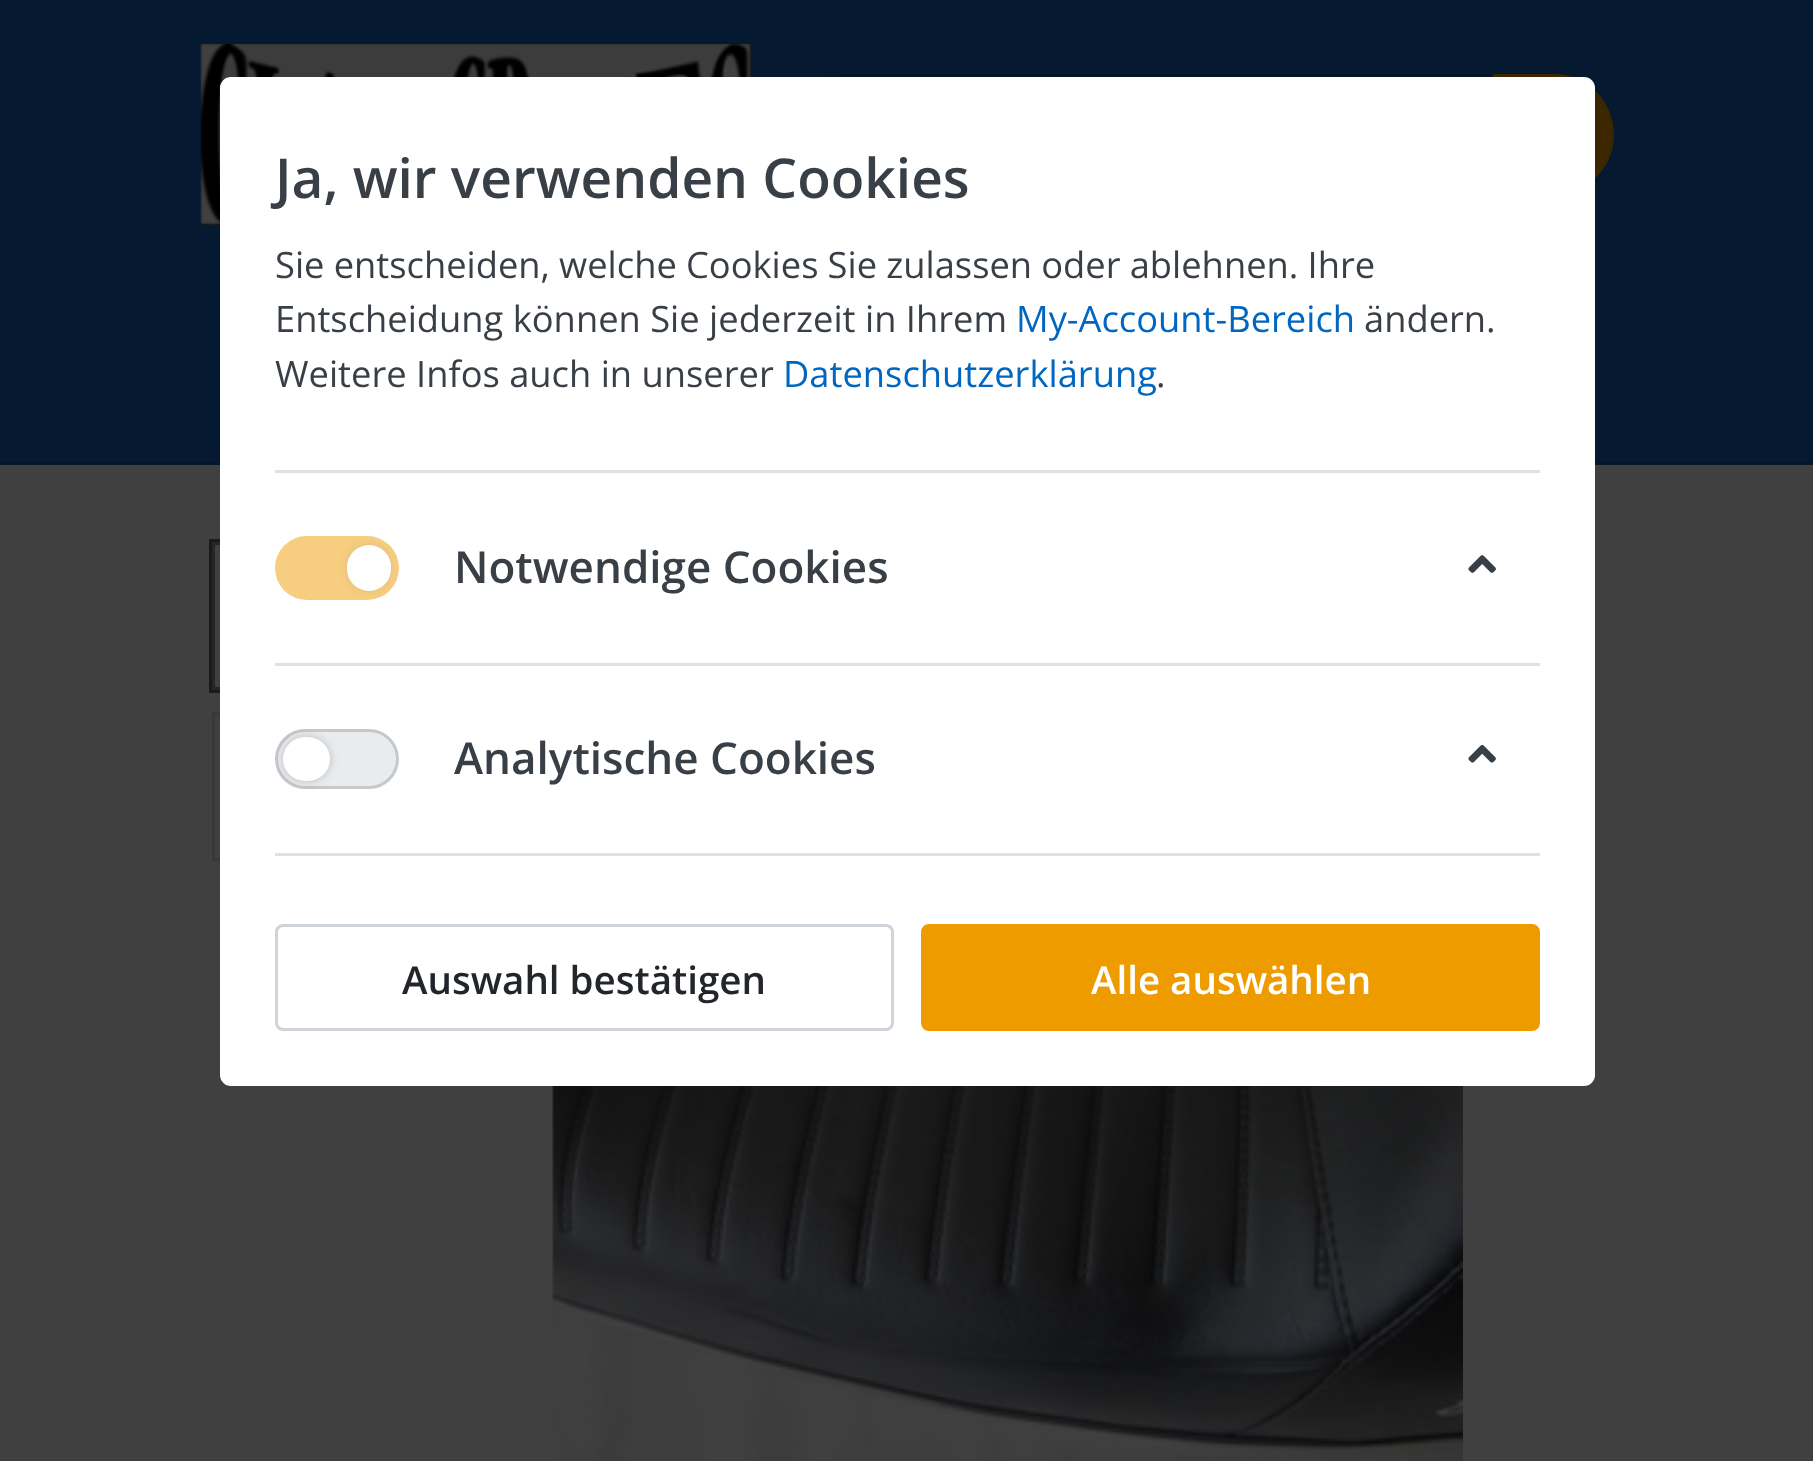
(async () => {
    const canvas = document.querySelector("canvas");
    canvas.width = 1813;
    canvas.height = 1461;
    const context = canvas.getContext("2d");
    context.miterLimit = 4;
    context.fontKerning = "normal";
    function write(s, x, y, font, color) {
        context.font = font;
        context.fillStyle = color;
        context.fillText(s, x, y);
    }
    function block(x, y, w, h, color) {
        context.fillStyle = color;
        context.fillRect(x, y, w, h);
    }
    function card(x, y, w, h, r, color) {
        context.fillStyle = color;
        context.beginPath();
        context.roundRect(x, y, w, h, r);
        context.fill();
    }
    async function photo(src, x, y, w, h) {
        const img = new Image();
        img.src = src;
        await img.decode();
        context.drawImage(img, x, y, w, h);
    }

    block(0, 0, 1813, 1461, "rgb(64, 64, 64)");
    block(0, 0, 1813, 462, "rgb(5, 25, 48)");
    block(0, 462, 1813, 3, "rgb(5, 22, 42)");
    await photo("media/1.png", 200, 44, 551, 182);
    context.beginPath();
    context.roundRect(785.5, 75.5, 827, 118, 59);
    context.strokeStyle = "rgba(0, 0, 0, 0.1)";
    context.lineWidth = 3;
    context.stroke();
    context.fillStyle = "rgb(60, 39, 0)";
    context.beginPath();
    context.roundRect(1493, 77, 119, 116, [0, 58, 58, 0]);
    context.fill();
    context.beginPath();
    context.moveTo(1493, 74);
    context.lineTo(1554, 74);
    context.bezierCurveTo(1587, 74, 1614, 101, 1614, 135);
    context.bezierCurveTo(1614, 168, 1587, 195, 1554, 195);
    context.lineTo(1493, 195);
    context.closePath();
    context.moveTo(1493, 77);
    context.lineTo(1554, 77);
    context.bezierCurveTo(1586, 77, 1612, 103, 1612, 135);
    context.bezierCurveTo(1612, 167, 1586, 192, 1554, 192);
    context.lineTo(1493, 192);
    context.closePath();
    context.fill("evenodd");
    context.strokeStyle = "rgb(26, 26, 26)";
    context.strokeRect(210.5, 540.5, 146, 151);
    context.strokeStyle = "rgb(38, 38, 38)";
    context.strokeRect(213.5, 543.5, 140, 145);
    context.strokeStyle = "rgb(56, 56, 56)";
    context.strokeRect(213.5, 713.5, 140, 146);
    await photo("media/2.png", 552, 1086, 911, 375);
    card(220, 77, 1375, 1009, 11, "rgb(255, 255, 255)");
    write("Ja, wir verwenden Cookies", 275, 198, "600 55px Open Sans", "rgb(57, 63, 70)");
    context.wordSpacing = "-0.25px";
    write("Sie entscheiden, welche Cookies Sie zulassen oder ablehnen. Ihre", 275, 278, "36.3px Open Sans", "rgb(57, 63, 70)");
    context.wordSpacing = "0px";
    write("Entscheidung können Sie jederzeit in Ihrem", 275, 332, "36.3px Open Sans", "rgb(57, 63, 70)");
    write("My-Account-Bereich", 1016, 332, "36.3px Open Sans", "rgb(0, 102, 192)");
    write("ändern.", 1364, 332, "36.3px Open Sans", "rgb(57, 63, 70)");
    write("Weitere Infos auch in unserer", 275, 387, "36.3px Open Sans", "rgb(57, 63, 70)");
    write("Datenschutzerklärung", 783, 387, "36.3px Open Sans", "rgb(0, 102, 192)");
    write(".", 1156, 387, "36.3px Open Sans", "rgb(57, 63, 70)");
    block(275, 470, 1265, 3, "rgb(222, 226, 230)");
    block(275, 663, 1265, 3, "rgb(222, 226, 230)");
    card(275, 536, 124, 64, 32, "rgb(247, 205, 128)");
    context.fillStyle = "rgba(128, 128, 128, 0.2)";
    context.filter = "blur(4px)";
    context.beginPath();
    context.roundRect(347, 545, 44, 46, 22);
    context.fill();
    context.filter = "none";
    card(347, 545, 44, 46, 22, "rgb(255, 255, 255)");
    write("Notwendige Cookies", 454, 583, "600 44px Open Sans", "rgb(57, 63, 70)");
    await photo("media/3.png", 1468, 555, 28, 18);
    block(275, 853, 1265, 3, "rgb(222, 226, 230)");
    card(275, 729, 124, 60, 30, "rgb(233, 236, 239)");
    context.beginPath();
    context.roundRect(276.5, 730.5, 121, 57, 28.5);
    context.strokeStyle = "rgba(0, 0, 0, 0.15)";
    context.stroke();
    context.fillStyle = "rgba(0, 0, 0, 0.2)";
    context.filter = "blur(4px)";
    context.beginPath();
    context.roundRect(283, 737, 47, 44, 22);
    context.fill();
    context.filter = "none";
    card(283, 737, 47, 44, 22, "rgb(255, 255, 255)");
    write("Analytische Cookies", 454, 774, "600 44px Open Sans", "rgb(57, 63, 70)");
    await photo("media/4.png", 1468, 744, 28, 19);
    context.beginPath();
    context.roundRect(276.5, 925.5, 616, 104, 6.5);
    context.strokeStyle = "rgb(206, 212, 218)";
    context.stroke();
    write("Auswahl bestätigen", 402, 994, "600 38.5px Open Sans", "rgb(34, 38, 42)");
    context.fillStyle = "rgb(238, 155, 0)";
    context.beginPath();
    context.roundRect(922.5, 925.5, 616, 104, 6.5);
    context.fill();
    context.strokeStyle = "rgb(238, 155, 0)";
    context.stroke();
    write("Alle auswählen", 1091, 994, "600 38.5px Open Sans", "rgb(255, 255, 255)");
})();
